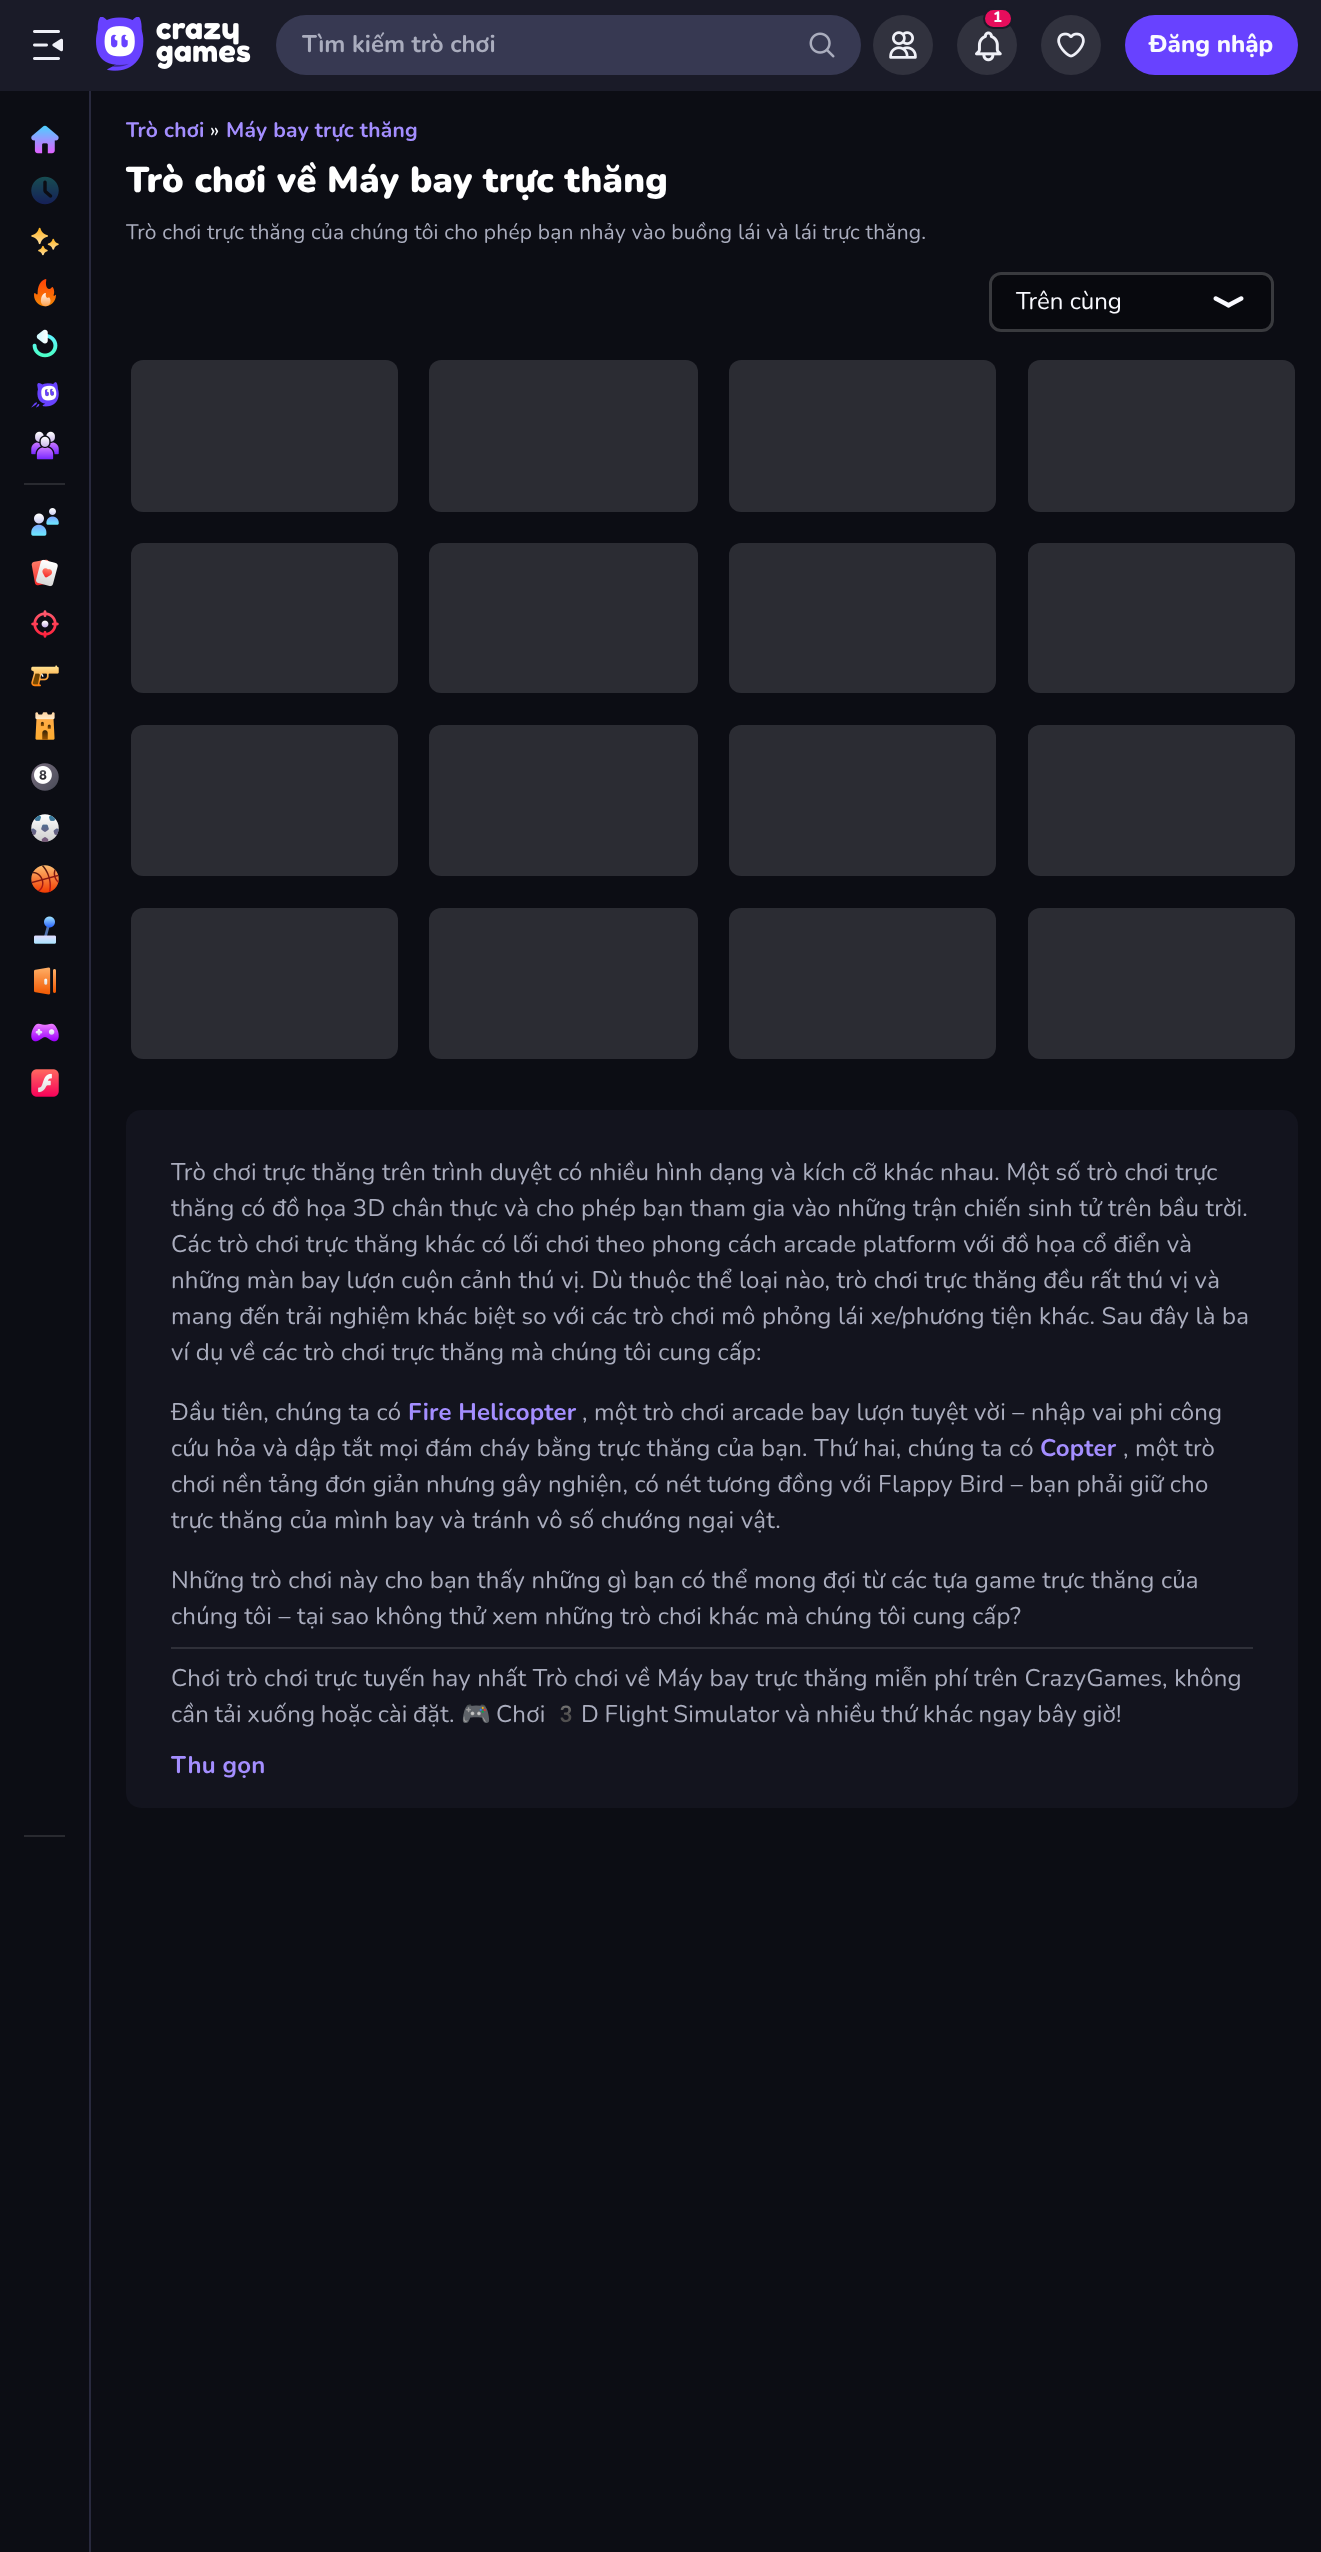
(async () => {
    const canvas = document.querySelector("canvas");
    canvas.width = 1321;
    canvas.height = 2552;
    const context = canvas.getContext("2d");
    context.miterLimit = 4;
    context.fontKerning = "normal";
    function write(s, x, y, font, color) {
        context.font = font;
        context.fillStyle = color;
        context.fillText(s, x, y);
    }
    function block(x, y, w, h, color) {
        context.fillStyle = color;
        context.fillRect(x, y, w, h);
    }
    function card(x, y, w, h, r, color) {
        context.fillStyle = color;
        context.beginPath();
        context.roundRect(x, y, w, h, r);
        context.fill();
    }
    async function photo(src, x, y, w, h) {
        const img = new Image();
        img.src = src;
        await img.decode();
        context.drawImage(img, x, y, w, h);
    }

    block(0, 0, 1321, 2552, "rgb(12, 13, 20)");
    block(89, 90, 2, 2462, "rgb(40, 41, 61)");
    block(0, 0, 1321, 91, "rgb(26, 27, 40)");
    await photo("media/1.png", 33, 30, 30, 30);
    await photo("media/2.png", 96, 17, 48, 54);
    await photo("media/3.png", 156, 23, 95, 46);
    card(276, 15, 585, 60, 30, "rgb(55, 57, 82)");
    context.save();
    context.beginPath();
    context.rect(302, 29, 555, 33);
    context.clip();
    write("Tìm kiếm trò chơi", 302, 52, "bold 24px Nunito", "rgb(170, 173, 190)");
    context.restore();
    await photo("media/4.png", 809, 32, 26, 26);
    context.fillStyle = "rgb(49, 50, 62)";
    context.beginPath();
    context.arc(903, 45, 30, 0, Math.PI * 2);
    context.fill();
    await photo("media/5.png", 889, 31, 28, 28);
    context.beginPath();
    context.arc(987, 45, 30, 0, Math.PI * 2);
    context.fill();
    context.fillStyle = "rgb(231, 13, 92)";
    context.beginPath();
    context.roundRect(984, 9, 28, 19, 9.5);
    context.fill();
    context.strokeStyle = "rgb(26, 27, 40)";
    context.lineWidth = 2;
    context.stroke();
    context.letterSpacing = "0.2px";
    write("1", 993, 22, "800 15px Nunito", "rgb(249, 250, 255)");
    await photo("media/6.png", 975, 31, 27, 31);
    context.fillStyle = "rgb(49, 50, 62)";
    context.beginPath();
    context.arc(1071, 45, 30, 0, Math.PI * 2);
    context.fill();
    await photo("media/7.png", 1057, 32, 28, 26);
    card(1125, 15, 173, 60, 30, "rgb(104, 66, 255)");
    context.letterSpacing = "0px";
    write("Đăng nhập", 1149, 52, "800 24px Nunito", "rgb(249, 250, 255)");
    await photo("media/8.png", 31, 125, 28, 29);
    await photo("media/9.png", 31, 176, 28, 29);
    await photo("media/10.png", 31, 227, 28, 29);
    await photo("media/11.png", 34, 279, 22, 28);
    await photo("media/12.png", 32, 329, 26, 29);
    await photo("media/13.png", 31, 382, 28, 26);
    await photo("media/14.png", 31, 431, 28, 29);
    block(24, 483, 41, 2, "rgb(41, 42, 48)");
    await photo("media/15.png", 31, 508, 28, 28);
    await photo("media/16.png", 31, 559, 27, 28);
    await photo("media/17.png", 31, 610, 28, 28);
    await photo("media/18.png", 31, 665, 28, 22);
    await photo("media/19.png", 35, 712, 20, 28);
    await photo("media/20.png", 31, 763, 28, 28);
    await photo("media/21.png", 31, 814, 28, 28);
    await photo("media/22.png", 31, 865, 28, 28);
    await photo("media/23.png", 34, 916, 22, 28);
    await photo("media/24.png", 34, 967, 22, 28);
    await photo("media/25.png", 31, 1023, 28, 19);
    await photo("media/26.png", 31, 1069, 28, 28);
    block(24, 1835, 41, 2, "rgb(41, 42, 48)");
    context.letterSpacing = "0.2px";
    write("Trò chơi", 126, 137, "bold 21px Nunito", "rgb(164, 142, 255)");
    write("»", 210, 137, "21px Nunito", "rgb(249, 250, 255)");
    write("Máy bay trực thăng", 226, 137, "bold 21px Nunito", "rgb(164, 142, 255)");
    write("Trò chơi về Máy bay trực thăng", 126, 192, "900 36px Nunito", "rgb(255, 255, 255)");
    write("Trò chơi trực thăng của chúng tôi cho phép bạn nhảy vào buồng lái và lái trực thăng.", 126, 239, "21px Nunito", "rgb(170, 173, 190)");
    card(989, 272, 285, 60, 12, "rgb(8, 9, 14)");
    context.beginPath();
    context.roundRect(990.5, 273.5, 282, 57, 10.5);
    context.strokeStyle = "rgba(255, 255, 255, 0.2)";
    context.lineWidth = 3;
    context.stroke();
    context.letterSpacing = "0px";
    write("Trên cùng", 1016, 309, "24px Nunito", "rgb(249, 250, 255)");
    await photo("media/27.png", 1213, 296, 31, 12);
    card(131, 360, 267, 152, 12, "rgb(43, 44, 51)");
    card(429, 360, 269, 152, 12, "rgb(43, 44, 51)");
    card(729, 360, 267, 152, 12, "rgb(43, 44, 51)");
    card(1028, 360, 267, 152, 12, "rgb(43, 44, 51)");
    card(131, 543, 267, 150, 12, "rgb(43, 44, 51)");
    card(429, 543, 269, 150, 12, "rgb(43, 44, 51)");
    card(729, 543, 267, 150, 12, "rgb(43, 44, 51)");
    card(1028, 543, 267, 150, 12, "rgb(43, 44, 51)");
    card(131, 725, 267, 151, 12, "rgb(43, 44, 51)");
    card(429, 725, 269, 151, 12, "rgb(43, 44, 51)");
    card(729, 725, 267, 151, 12, "rgb(43, 44, 51)");
    card(1028, 725, 267, 151, 12, "rgb(43, 44, 51)");
    card(131, 908, 267, 151, 12, "rgb(43, 44, 51)");
    card(429, 908, 269, 151, 12, "rgb(43, 44, 51)");
    card(729, 908, 267, 151, 12, "rgb(43, 44, 51)");
    card(1028, 908, 267, 151, 12, "rgb(43, 44, 51)");
    card(126, 1110, 1172, 698, 15, "rgb(19, 20, 30)");
    context.letterSpacing = "0.2px";
    write("Trò chơi trực thăng trên trình duyệt có nhiều hình dạng và kích cỡ khác nhau. Một số trò chơi trực", 171, 1180, "24px Nunito", "rgb(170, 173, 190)");
    write("thăng có đồ họa 3D chân thực và cho phép bạn tham gia vào những trận chiến sinh tử trên bầu trời.", 171, 1216, "24px Nunito", "rgb(170, 173, 190)");
    write("Các trò chơi trực thăng khác có lối chơi theo phong cách arcade platform với đồ họa cổ điển và", 171, 1252, "24px Nunito", "rgb(170, 173, 190)");
    write("những màn bay lượn cuộn cảnh thú vị. Dù thuộc thể loại nào, trò chơi trực thăng đều rất thú vị và", 171, 1288, "24px Nunito", "rgb(170, 173, 190)");
    write("mang đến trải nghiệm khác biệt so với các trò chơi mô phỏng lái xe/phương tiện khác. Sau đây là ba", 171, 1324, "24px Nunito", "rgb(170, 173, 190)");
    write("ví dụ về các trò chơi trực thăng mà chúng tôi cung cấp:", 171, 1360, "24px Nunito", "rgb(170, 173, 190)");
    write("Đầu tiên, chúng ta có", 171, 1420, "24px Nunito", "rgb(170, 173, 190)");
    write("Fire Helicopter", 408, 1420, "bold 24px Nunito", "rgb(164, 142, 255)");
    write(", một trò chơi arcade bay lượn tuyệt vời – nhập vai phi công", 582, 1420, "24px Nunito", "rgb(170, 173, 190)");
    write("cứu hỏa và dập tắt mọi đám cháy bằng trực thăng của bạn. Thứ hai, chúng ta có", 171, 1456, "24px Nunito", "rgb(170, 173, 190)");
    write("Copter", 1040, 1456, "bold 24px Nunito", "rgb(164, 142, 255)");
    write(", một trò", 1123, 1456, "24px Nunito", "rgb(170, 173, 190)");
    write("chơi nền tảng đơn giản nhưng gây nghiện, có nét tương đồng với Flappy Bird – bạn phải giữ cho", 171, 1492, "24px Nunito", "rgb(170, 173, 190)");
    write("trực thăng của mình bay và tránh vô số chướng ngại vật.", 171, 1528, "24px Nunito", "rgb(170, 173, 190)");
    write("Những trò chơi này cho bạn thấy những gì bạn có thể mong đợi từ các tựa game trực thăng của", 171, 1588, "24px Nunito", "rgb(170, 173, 190)");
    write("chúng tôi – tại sao không thử xem những trò chơi khác mà chúng tôi cung cấp?", 171, 1624, "24px Nunito", "rgb(170, 173, 190)");
    block(171, 1647, 1082, 2, "rgb(47, 48, 57)");
    write("Chơi trò chơi trực tuyến hay nhất Trò chơi về Máy bay trực thăng miễn phí trên CrazyGames, không", 171, 1686, "24px Nunito", "rgb(170, 173, 190)");
    context.wordSpacing = "-1px";
    write("cần tải xuống hoặc cài đặt.", 171, 1722, "24px Nunito", "rgb(170, 173, 190)");
    context.wordSpacing = "0px";
    write("🎮", 461, 1722, "24px Noto Color Emoji", "rgb(170, 173, 190)");
    write("Chơi", 496, 1722, "24px Nunito", "rgb(170, 173, 190)");
    write("3", 551, 1722, "24px Noto Color Emoji", "rgb(170, 173, 190)");
    context.wordSpacing = "-1px";
    write("D Flight Simulator và nhiều thứ khác ngay bây giờ!", 581, 1722, "24px Nunito", "rgb(170, 173, 190)");
    context.wordSpacing = "0px";
    write("Thu gọn", 171, 1773, "bold 24px Nunito", "rgb(164, 142, 255)");
})();
